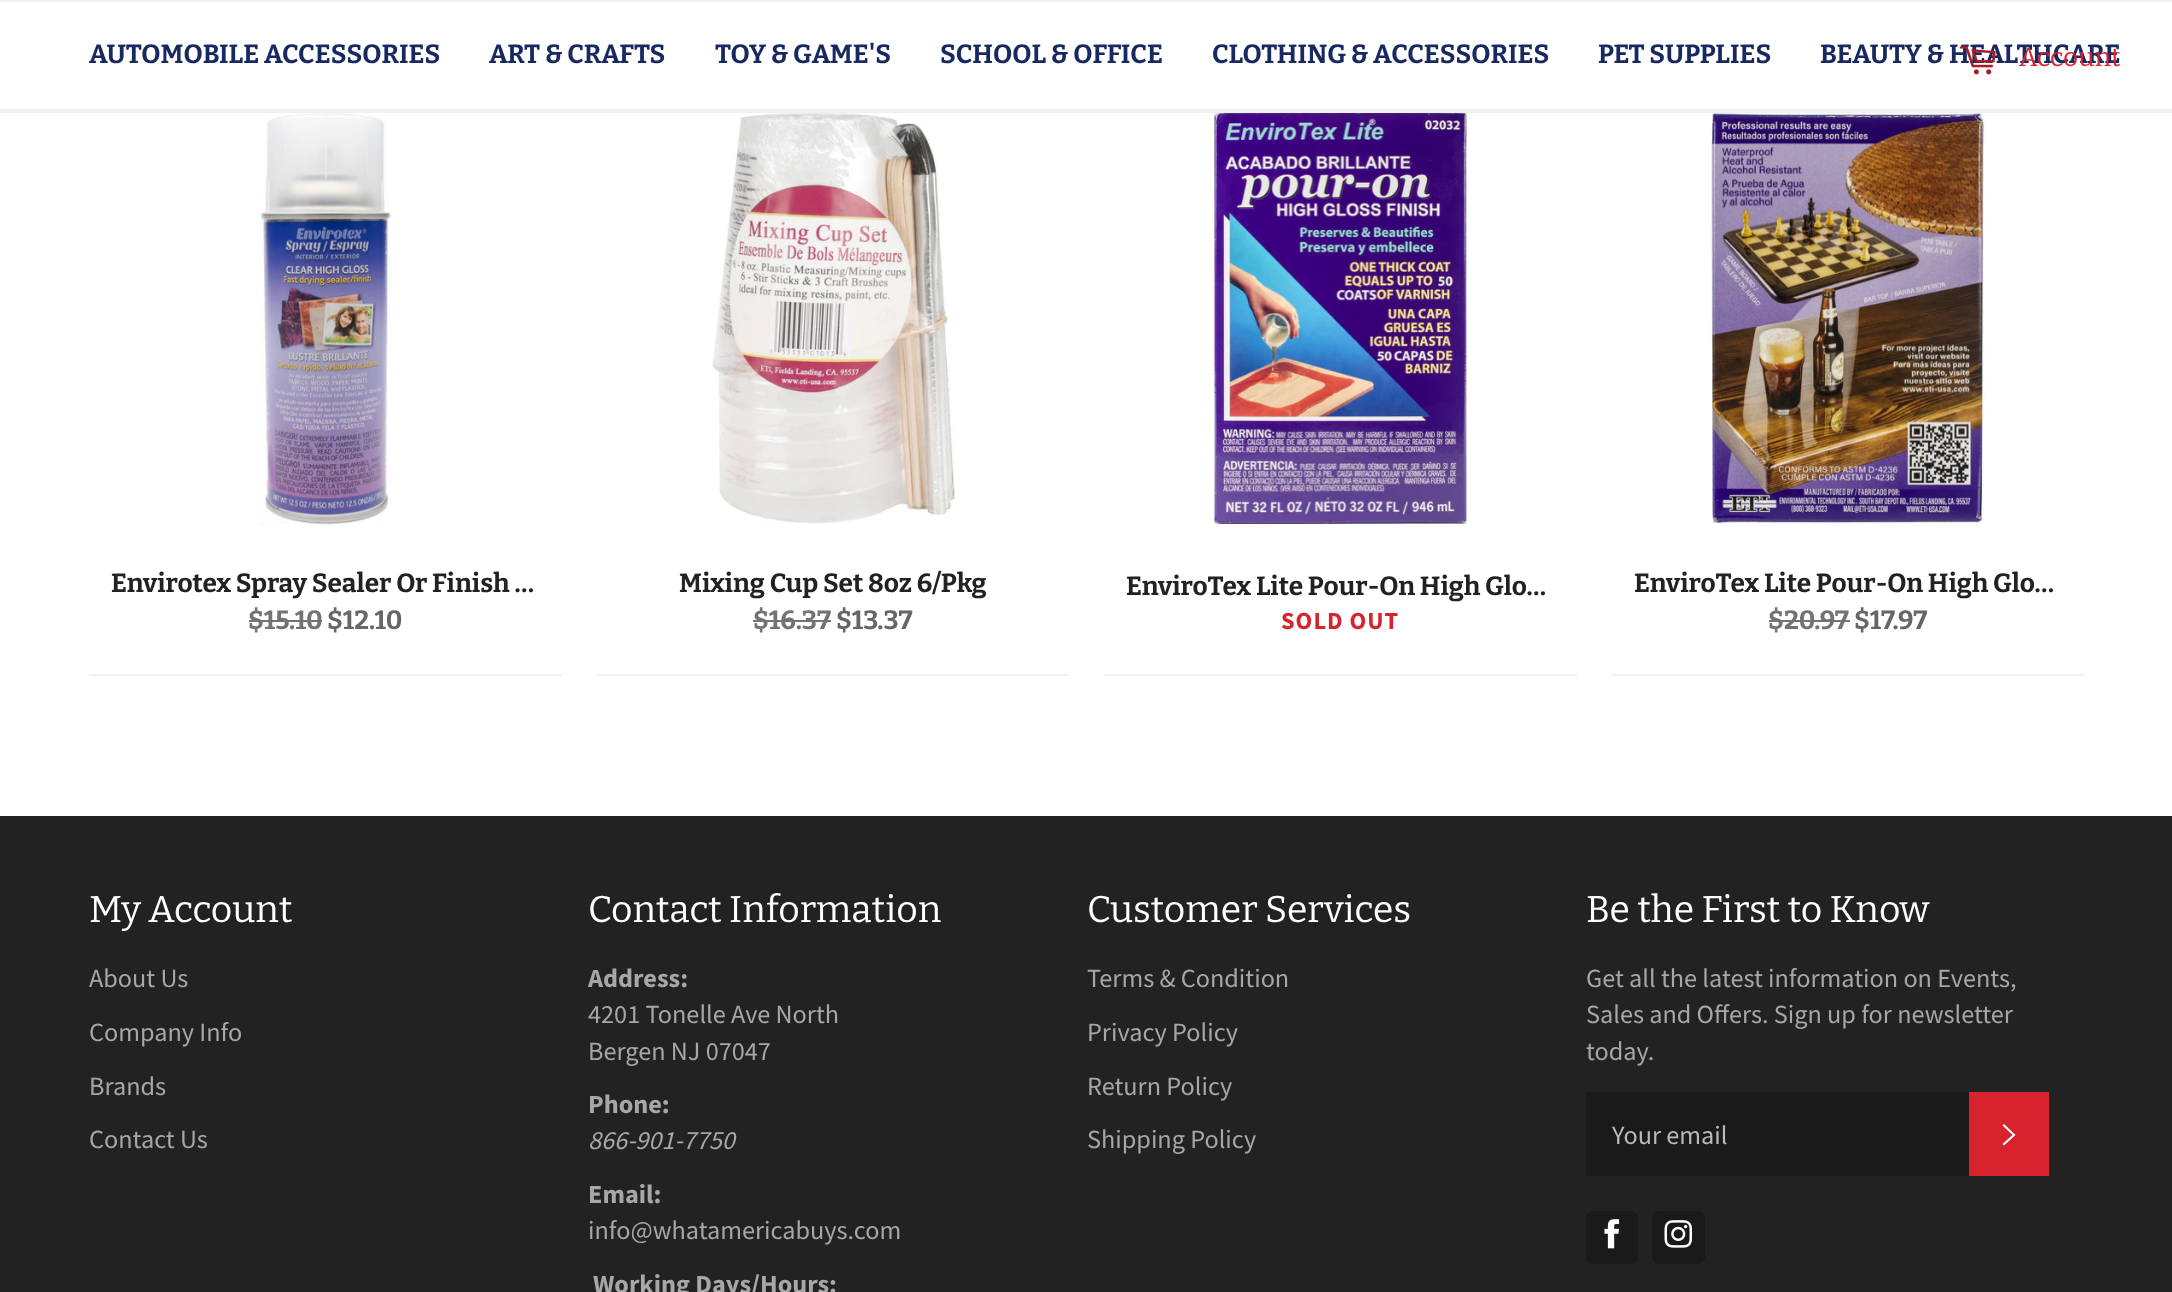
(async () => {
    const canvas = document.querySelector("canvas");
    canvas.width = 2172;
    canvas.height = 1292;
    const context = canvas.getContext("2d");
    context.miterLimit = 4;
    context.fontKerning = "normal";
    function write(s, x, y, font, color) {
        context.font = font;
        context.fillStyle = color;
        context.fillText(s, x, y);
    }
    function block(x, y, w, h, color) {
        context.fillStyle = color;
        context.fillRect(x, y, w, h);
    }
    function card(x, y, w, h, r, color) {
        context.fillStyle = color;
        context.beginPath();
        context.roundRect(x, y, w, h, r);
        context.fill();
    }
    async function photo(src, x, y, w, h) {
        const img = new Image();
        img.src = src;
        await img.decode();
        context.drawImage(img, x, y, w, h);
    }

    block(0, 0, 2172, 1292, "rgb(255, 255, 255)");
    block(0, 0, 2172, 2, "rgb(242, 242, 242)");
    block(0, 109, 2172, 4, "rgb(240, 240, 240)");
    write("AUTOMOBILE ACCESSORIES", 89, 63, "bold 26.25px Bitter", "rgb(24, 41, 98)");
    write("ART & CRAFTS", 489, 63, "bold 26.25px Bitter", "rgb(24, 41, 98)");
    write("TOY & GAME'S", 715, 63, "bold 26.25px Bitter", "rgb(24, 41, 98)");
    write("SCHOOL & OFFICE", 940, 63, "bold 26.25px Bitter", "rgb(24, 41, 98)");
    write("CLOTHING & ACCESSORIES", 1212, 63, "bold 26.25px Bitter", "rgb(24, 41, 98)");
    write("PET SUPPLIES", 1598, 63, "bold 26.25px Bitter", "rgb(24, 41, 98)");
    write("BEAUTY & HEALTHCARE", 1820, 63, "bold 26.25px Bitter", "rgb(24, 41, 98)");
    await photo("media/1.png", 1959, 46, 37, 29);
    write("Account", 2019, 66, "26.25px Bitter", "rgb(216, 35, 47)");
    block(89, 674, 473, 2, "rgb(240, 240, 240)");
    await photo("media/2.png", 259, 113, 132, 412);
    write("Envirotex Spray Sealer Or Finish …", 111, 592, "bold 26.25px Bitter", "rgb(34, 34, 34)");
    write("$15.10", 248, 629, "bold 26.25px Bitter", "rgb(115, 115, 115)");
    block(249, 620, 73, 2, "rgb(115, 115, 115)");
    write("$12.10", 327, 629, "bold 26.25px Bitter", "rgb(102, 102, 102)");
    block(597, 674, 472, 2, "rgb(240, 240, 240)");
    await photo("media/3.png", 712, 113, 243, 411);
    write("Mixing Cup Set 8oz 6/Pkg", 679, 592, "bold 26.25px Bitter", "rgb(34, 34, 34)");
    write("$16.37", 753, 629, "bold 26.25px Bitter", "rgb(115, 115, 115)");
    block(753, 620, 78, 2, "rgb(115, 115, 115)");
    write("$13.37", 836, 629, "bold 26.25px Bitter", "rgb(102, 102, 102)");
    block(1104, 674, 473, 2, "rgb(240, 240, 240)");
    await photo("media/4.png", 1214, 113, 253, 411);
    write("EnviroTex Lite Pour-On High Glo…", 1126, 595, "bold 26.25px Bitter", "rgb(34, 34, 34)");
    context.letterSpacing = "1px";
    write("SOLD OUT", 1281, 629, "bold 24.5px Source Sans Pro", "rgb(216, 35, 47)");
    block(1612, 674, 472, 2, "rgb(240, 240, 240)");
    await photo("media/5.png", 1711, 113, 274, 411);
    context.save();
    context.beginPath();
    context.rect(1635, 567, 428, 35);
    context.clip();
    context.letterSpacing = "0px";
    write("EnviroTex Lite Pour-On High Glo…", 1634, 592, "bold 26.25px Bitter", "rgb(34, 34, 34)");
    context.restore();
    context.letterSpacing = "0px";
    write("$20.97", 1768, 629, "bold 26.25px Bitter", "rgb(115, 115, 115)");
    block(1769, 620, 81, 2, "rgb(115, 115, 115)");
    write("$17.97", 1854, 629, "bold 26.25px Bitter", "rgb(102, 102, 102)");
    block(0, 816, 2172, 476, "rgb(34, 34, 34)");
    write("My Account", 89, 922, "37.25px Bitter", "rgb(255, 255, 255)");
    write("About Us", 89, 987, "26.25px Source Sans Pro", "rgb(167, 167, 167)");
    write("Company Info", 89, 1041, "26.25px Source Sans Pro", "rgb(167, 167, 167)");
    write("Brands", 89, 1095, "26.25px Source Sans Pro", "rgb(167, 167, 167)");
    write("Contact Us", 89, 1148, "26.25px Source Sans Pro", "rgb(167, 167, 167)");
    write("Contact Information", 588, 922, "37.25px Bitter", "rgb(255, 255, 255)");
    write("Address:", 588, 987, "bold 26.25px Source Sans Pro", "rgb(167, 167, 167)");
    write("4201 Tonelle Ave North", 588, 1023, "26.25px Source Sans Pro", "rgb(167, 167, 167)");
    write("Bergen NJ 07047", 588, 1060, "26.25px Source Sans Pro", "rgb(167, 167, 167)");
    write("Phone:", 588, 1113, "bold 26.25px Source Sans Pro", "rgb(167, 167, 167)");
    write("866-901-7750", 588, 1149, "italic 26.25px Source Sans Pro", "rgb(167, 167, 167)");
    write("Email:", 588, 1203, "bold 26.25px Source Sans Pro", "rgb(167, 167, 167)");
    write("info@whatamericabuys.com", 588, 1239, "26.25px Source Sans Pro", "rgb(167, 167, 167)");
    write("Working Days/Hours:", 593, 1293, "bold 26.25px Source Sans Pro", "rgb(167, 167, 167)");
    write("Customer Services", 1087, 922, "37.25px Bitter", "rgb(255, 255, 255)");
    write("Terms & Condition", 1087, 987, "26.25px Source Sans Pro", "rgb(167, 167, 167)");
    write("Privacy Policy", 1087, 1041, "26.25px Source Sans Pro", "rgb(167, 167, 167)");
    write("Return Policy", 1087, 1095, "26.25px Source Sans Pro", "rgb(167, 167, 167)");
    write("Shipping Policy", 1087, 1148, "26.25px Source Sans Pro", "rgb(167, 167, 167)");
    write("Be the First to Know", 1586, 922, "37.25px Bitter", "rgb(255, 255, 255)");
    write("Get all the latest information on Events,", 1586, 987, "26.25px Source Sans Pro", "rgb(167, 167, 167)");
    write("Sales and Offers. Sign up for newsletter", 1586, 1023, "26.25px Source Sans Pro", "rgb(167, 167, 167)");
    write("today.", 1586, 1060, "26.25px Source Sans Pro", "rgb(167, 167, 167)");
    block(1586, 1092, 383, 84, "rgb(26, 26, 26)");
    write("Your email", 1612, 1144, "26.25px Source Sans Pro", "rgb(186, 186, 186)");
    block(1969, 1092, 80, 84, "rgb(216, 35, 47)");
    context.fillStyle = "rgb(255, 255, 255)";
    context.beginPath();
    context.moveTo(2002.5, 1125.5);
    context.lineTo(2004, 1124);
    context.lineTo(2015.5, 1135);
    context.lineTo(2004, 1145.5);
    context.lineTo(2002.5, 1144);
    context.lineTo(2012.5, 1135);
    context.closePath();
    context.fill();
    card(1586, 1211, 52, 53, 7, "rgb(26, 26, 26)");
    await photo("media/6.png", 1604, 1219, 16, 30);
    card(1652, 1211, 53, 53, 7, "rgb(26, 26, 26)");
    await photo("media/7.png", 1664, 1220, 28, 28);
})();
